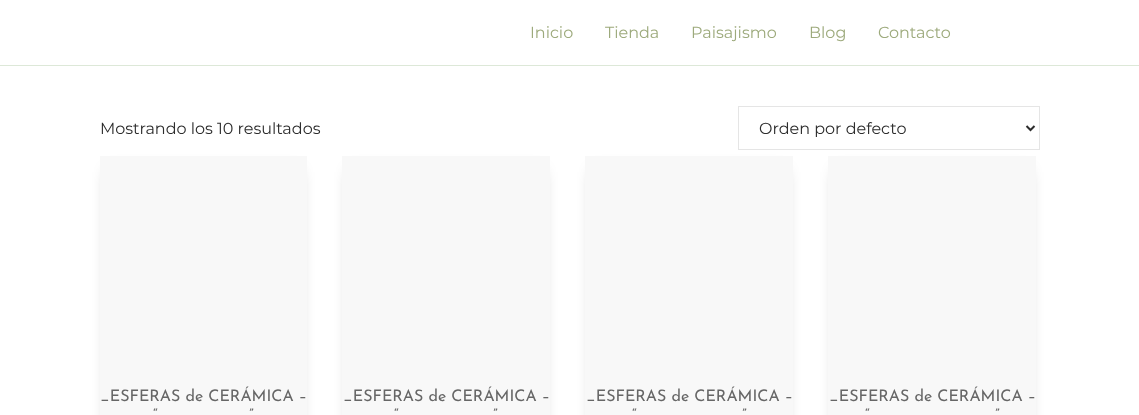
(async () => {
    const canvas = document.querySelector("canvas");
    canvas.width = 1139;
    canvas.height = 415;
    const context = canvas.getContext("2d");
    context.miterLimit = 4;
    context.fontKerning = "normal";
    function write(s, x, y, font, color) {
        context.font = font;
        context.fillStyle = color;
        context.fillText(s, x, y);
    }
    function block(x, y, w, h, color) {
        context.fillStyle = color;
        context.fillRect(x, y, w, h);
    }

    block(0, 0, 1139, 415, "rgb(255, 255, 255)");
    block(0, 65, 1139, 1, "rgb(221, 232, 216)");
    write("Inicio", 530, 38, "100 16px Montserrat", "rgb(157, 170, 124)");
    write("Tienda", 605, 38, "100 16px Montserrat", "rgb(157, 170, 124)");
    write("Paisajismo", 691, 38, "100 16px Montserrat", "rgb(157, 170, 124)");
    write("Blog", 809, 38, "100 16px Montserrat", "rgb(157, 170, 124)");
    write("Contacto", 878, 38, "100 16px Montserrat", "rgb(157, 170, 124)");
    write("Mostrando los 10 resultados", 100, 134, "100 16px Montserrat", "rgb(45, 45, 45)");
    context.fillStyle = "rgba(0, 0, 0, 0.4)";
    context.filter = "blur(8px)";
    context.beginPath();
    context.rect(595, 172, 188, 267);
    context.fill();
    context.filter = "none";
    context.filter = "blur(8px)";
    context.beginPath();
    context.rect(838, 172, 188, 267);
    context.fill();
    context.filter = "none";
    context.strokeStyle = "rgb(229, 229, 229)";
    context.strokeRect(738.5, 106.5, 301, 43);
    context.beginPath();
    context.moveTo(1026.5, 126);
    context.lineTo(1030.5, 130);
    context.lineTo(1034.5, 126);
    context.strokeStyle = "rgb(45, 45, 45)";
    context.lineWidth = 2;
    context.stroke();
    write("Orden por defecto", 759, 134, "100 16px Montserrat", "rgb(45, 45, 45)");
    context.fillStyle = "rgba(0, 0, 0, 0.4)";
    context.filter = "blur(8px)";
    context.beginPath();
    context.rect(110, 172, 187, 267);
    context.fill();
    context.filter = "none";
    block(100, 156, 207, 259, "rgb(248, 248, 248)");
    write("_ESFERAS de CERÁMICA –", 100, 401, "100 16px Josefin Sans", "rgb(102, 102, 102)");
    write("“", 153, 420, "100 16px Josefin Sans", "rgb(102, 102, 102)");
    write("”", 249, 420, "100 16px Josefin Sans", "rgb(102, 102, 102)");
    context.fillStyle = "rgba(0, 0, 0, 0.4)";
    context.filter = "blur(8px)";
    context.beginPath();
    context.rect(352, 172, 188, 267);
    context.fill();
    context.filter = "none";
    block(342, 156, 208, 259, "rgb(248, 248, 248)");
    write("_ESFERAS de CERÁMICA –", 343, 401, "100 16px Josefin Sans", "rgb(102, 102, 102)");
    write("“", 394, 420, "100 16px Josefin Sans", "rgb(102, 102, 102)");
    write("”", 493, 420, "100 16px Josefin Sans", "rgb(102, 102, 102)");
    block(585, 156, 208, 259, "rgb(248, 248, 248)");
    write("_ESFERAS de CERÁMICA –", 586, 401, "100 16px Josefin Sans", "rgb(102, 102, 102)");
    write("“", 632, 420, "100 16px Josefin Sans", "rgb(102, 102, 102)");
    write("”", 742, 420, "100 16px Josefin Sans", "rgb(102, 102, 102)");
    block(828, 156, 208, 259, "rgb(248, 248, 248)");
    write("_ESFERAS de CERÁMICA –", 829, 401, "100 16px Josefin Sans", "rgb(102, 102, 102)");
    write("“", 865, 420, "100 16px Josefin Sans", "rgb(102, 102, 102)");
    write("”", 995, 420, "100 16px Josefin Sans", "rgb(102, 102, 102)");
})();
